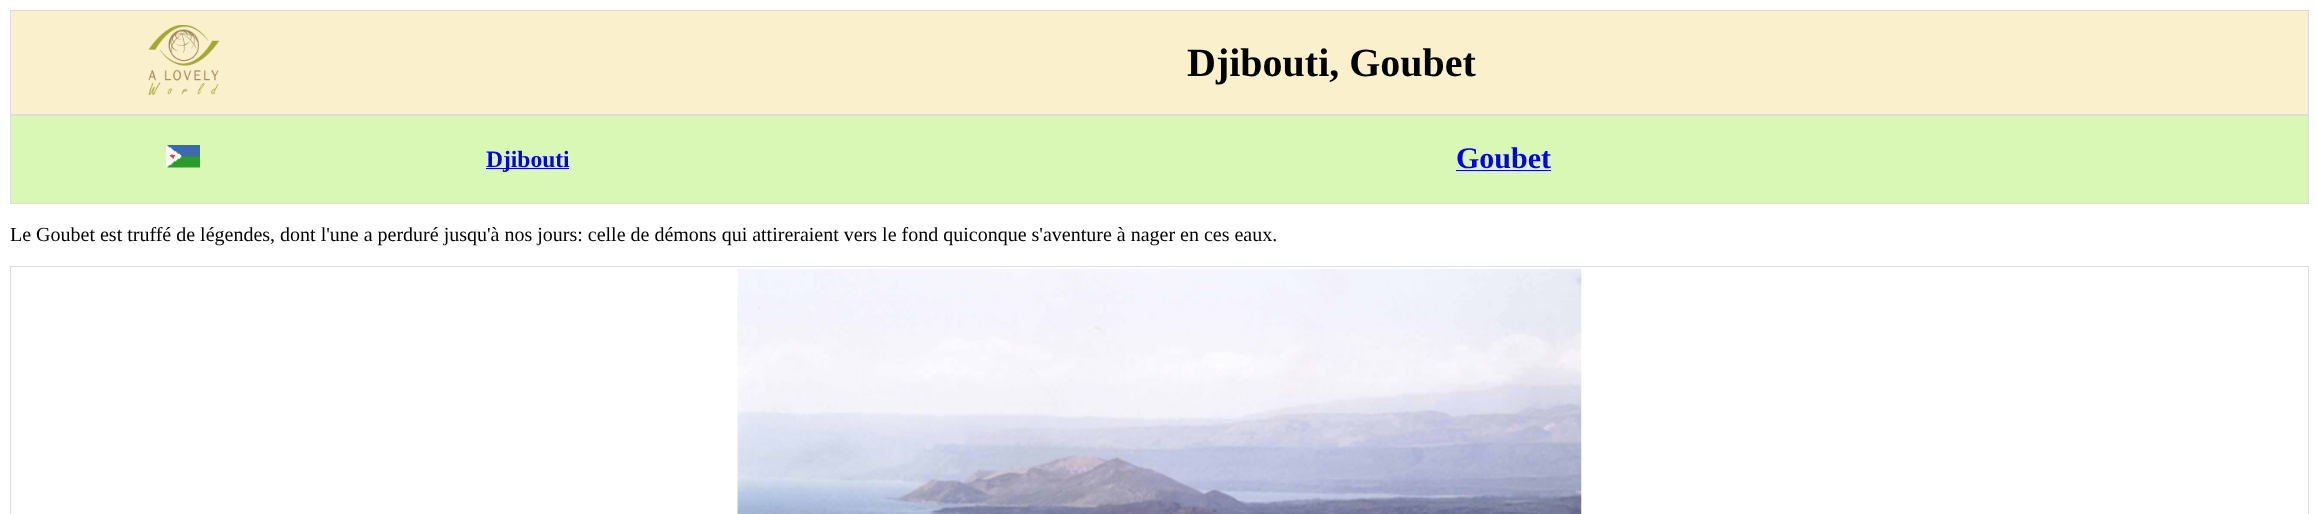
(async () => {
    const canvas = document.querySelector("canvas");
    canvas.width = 2318;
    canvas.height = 514;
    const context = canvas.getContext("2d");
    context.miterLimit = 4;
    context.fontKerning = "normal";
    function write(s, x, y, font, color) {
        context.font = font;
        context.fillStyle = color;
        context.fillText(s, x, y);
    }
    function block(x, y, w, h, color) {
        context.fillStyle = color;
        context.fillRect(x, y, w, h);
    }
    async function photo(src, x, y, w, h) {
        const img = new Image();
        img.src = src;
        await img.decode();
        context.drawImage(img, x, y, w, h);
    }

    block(0, 0, 2318, 514, "rgb(255, 255, 255)");
    block(11, 11, 2297, 103, "rgb(250, 240, 204)");
    block(10, 10, 2299, 1, "rgb(221, 221, 221)");
    block(2308, 10, 1, 105, "rgb(221, 221, 221)");
    block(10, 114, 2299, 2, "rgb(221, 221, 221)");
    block(10, 10, 1, 105, "rgb(221, 221, 221)");
    await photo("media/1.png", 148, 25, 72, 71);
    write("Djibouti, Goubet", 1187, 76, "bold 40px Liberation Serif", "rgb(0, 0, 0)");
    block(11, 116, 2297, 87, "rgb(217, 247, 181)");
    block(2308, 115, 1, 89, "rgb(221, 221, 221)");
    block(10, 203, 2299, 1, "rgb(221, 221, 221)");
    block(10, 115, 1, 89, "rgb(221, 221, 221)");
    await photo("media/2.png", 166, 145, 34, 23);
    block(486, 168, 83, 1, "rgb(0, 0, 238)");
    write("Djibouti", 486, 167, "bold 23.5px Liberation Serif", "rgb(0, 0, 238)");
    write("Goubet", 1456, 168, "bold 30px Liberation Serif", "rgb(0, 0, 238)");
    block(1456, 170, 95, 1, "rgb(0, 0, 238)");
    write("Le Goubet est truffé de légendes, dont l'une a perduré jusqu'à nos jours: celle de démons qui attireraient vers le fond quiconque s'aventure à nager en ces eaux.", 10, 241, "20px Liberation Serif", "rgb(0, 0, 0)");
    block(10, 266, 2299, 1, "rgb(221, 221, 221)");
    block(2308, 266, 1, 248, "rgb(221, 221, 221)");
    block(10, 266, 1, 248, "rgb(221, 221, 221)");
    await photo("media/3.png", 737, 268, 845, 246);
})();
